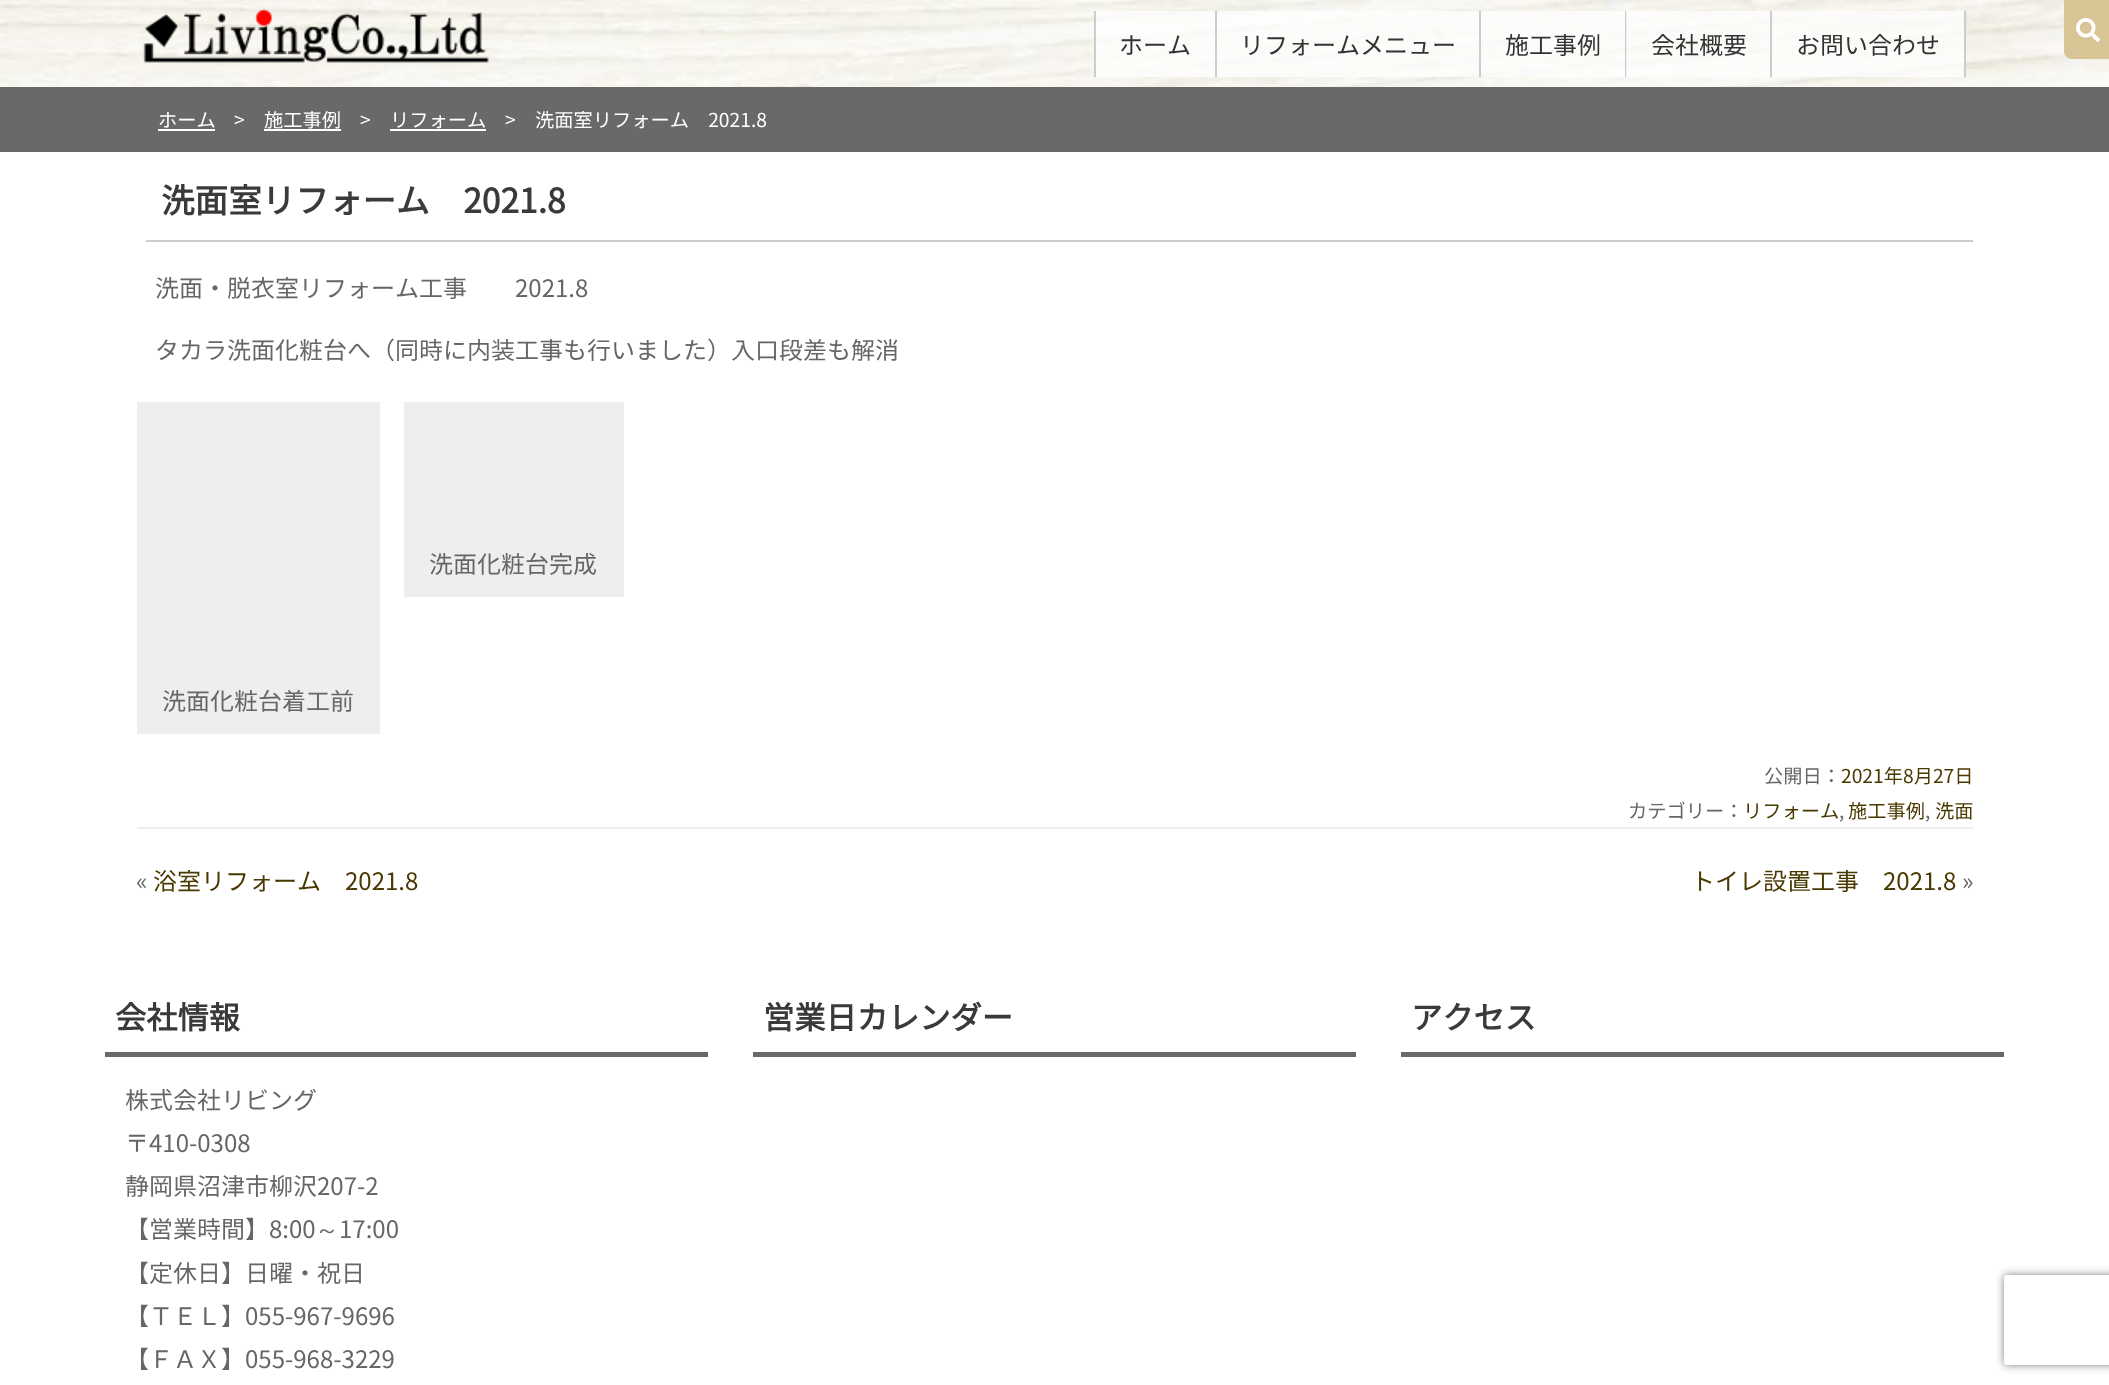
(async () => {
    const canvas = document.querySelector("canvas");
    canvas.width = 2109;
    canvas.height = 1385;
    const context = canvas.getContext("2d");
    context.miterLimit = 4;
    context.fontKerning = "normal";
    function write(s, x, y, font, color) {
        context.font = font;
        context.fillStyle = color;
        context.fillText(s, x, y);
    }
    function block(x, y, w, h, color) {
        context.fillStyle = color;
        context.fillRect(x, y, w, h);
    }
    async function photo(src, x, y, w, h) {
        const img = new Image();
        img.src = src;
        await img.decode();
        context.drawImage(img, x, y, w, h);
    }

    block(0, 0, 2109, 1385, "rgb(255, 255, 255)");
    await photo("media/1.png", 0, 0, 2109, 87);
    await photo("media/2.png", 143, 9, 346, 54);
    block(1096, 11, 119, 66, "rgba(255, 255, 255, 0.7)");
    block(1215, 11, 2, 66, "rgb(204, 204, 204)");
    block(1094, 11, 2, 66, "rgb(204, 204, 204)");
    write("ホーム", 1119, 54, "24px Noto Sans JP", "rgb(51, 51, 51)");
    block(1217, 11, 262, 66, "rgba(255, 255, 255, 0.7)");
    block(1479, 11, 2, 66, "rgb(204, 204, 204)");
    write("リフォームメニュー", 1240, 54, "24px Noto Sans JP", "rgb(51, 51, 51)");
    block(1481, 11, 144, 66, "rgba(255, 255, 255, 0.7)");
    block(1625, 11, 2, 66, "rgb(204, 204, 204)");
    write("施工事例", 1505, 54, "24px Noto Sans JP", "rgb(51, 51, 51)");
    block(1626, 11, 144, 66, "rgba(255, 255, 255, 0.7)");
    block(1770, 11, 2, 66, "rgb(204, 204, 204)");
    write("会社概要", 1651, 54, "24px Noto Sans JP", "rgb(51, 51, 51)");
    block(1772, 11, 192, 66, "rgba(255, 255, 255, 0.7)");
    block(1964, 11, 2, 66, "rgb(204, 204, 204)");
    write("お問い合わせ", 1796, 54, "24px Noto Sans JP", "rgb(51, 51, 51)");
    context.fillStyle = "rgb(216, 197, 149)";
    context.beginPath();
    context.moveTo(2064, 0);
    context.lineTo(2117, 0);
    context.lineTo(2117, 51);
    context.bezierCurveTo(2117, 55.5, 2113.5, 59, 2109, 59);
    context.lineTo(2072, 59);
    context.bezierCurveTo(2067.5, 59, 2064, 55.5, 2064, 51);
    context.closePath();
    context.fill();
    await photo("media/3.png", 2076, 18, 24, 24);
    block(0, 87, 2109, 65, "rgb(105, 105, 105)");
    write("ホーム", 158, 127, "19.25px Noto Sans JP", "rgb(255, 255, 255)");
    block(158, 129, 57, 2, "rgb(255, 255, 255)");
    write(">", 234, 127, "19.25px Noto Sans JP", "rgb(255, 255, 255)");
    write("施工事例", 264, 127, "19.25px Noto Sans JP", "rgb(255, 255, 255)");
    block(264, 129, 77, 2, "rgb(255, 255, 255)");
    write(">", 360, 127, "19.25px Noto Sans JP", "rgb(255, 255, 255)");
    write("リフォーム", 390, 127, "19.25px Noto Sans JP", "rgb(255, 255, 255)");
    block(390, 129, 96, 2, "rgb(255, 255, 255)");
    write(">　洗面室リフォーム　2021.8", 505, 127, "19.25px Noto Sans JP", "rgb(255, 255, 255)");
    write("洗面室リフォーム　2021.8", 161, 213, "bold 33.6px Noto Sans JP", "rgb(58, 58, 58)");
    block(146, 240, 1827, 2, "rgb(204, 204, 204)");
    write("洗面・脱衣室リフォーム工事　　2021.8", 155, 297, "24px Noto Sans JP", "rgb(102, 102, 102)");
    write("タカラ洗面化粧台へ（同時に内装工事も行いました）入口段差も解消", 155, 359, "24px Noto Sans JP", "rgb(102, 102, 102)");
    block(404, 402, 220, 195, "rgb(238, 238, 238)");
    write("洗面化粧台完成", 429, 573, "24px Noto Sans JP", "rgb(102, 102, 102)");
    block(137, 402, 243, 332, "rgb(238, 238, 238)");
    write("洗面化粧台着工前", 162, 710, "24px Noto Sans JP", "rgb(102, 102, 102)");
    write("公開日：", 1764, 783, "19.25px Noto Sans JP", "rgb(102, 102, 102)");
    write("2021年8月27日", 1841, 783, "19.25px Noto Sans JP", "rgb(73, 57, 0)");
    write("カテゴリー：", 1628, 818, "19.25px Noto Sans JP", "rgb(102, 102, 102)");
    write("リフォーム", 1743, 818, "19.25px Noto Sans JP", "rgb(73, 57, 0)");
    write(",", 1839, 818, "19.25px Noto Sans JP", "rgb(102, 102, 102)");
    write("施工事例", 1848, 818, "19.25px Noto Sans JP", "rgb(73, 57, 0)");
    write(",", 1925, 818, "19.25px Noto Sans JP", "rgb(102, 102, 102)");
    write("洗面", 1935, 818, "19.25px Noto Sans JP", "rgb(73, 57, 0)");
    block(137, 827, 1836, 2, "rgb(238, 238, 238)");
    write("«", 136, 890, "24px Noto Sans JP", "rgb(102, 102, 102)");
    write("浴室リフォーム　2021.8", 153, 890, "24px Noto Sans JP", "rgb(73, 57, 0)");
    write("トイレ設置工事　2021.8", 1691, 890, "24px Noto Sans JP", "rgb(73, 57, 0)");
    write("»", 1962, 890, "24px Noto Sans JP", "rgb(102, 102, 102)");
    block(105, 1052, 603, 5, "rgb(105, 105, 105)");
    write("会社情報", 115, 1029, "bold 31.25px Noto Sans JP", "rgb(58, 58, 58)");
    write("株式会社リビング", 125, 1109, "24px Noto Sans JP", "rgb(102, 102, 102)");
    write("〒410-0308", 125, 1152, "24px Noto Sans JP", "rgb(102, 102, 102)");
    write("静岡県沼津市柳沢207-2", 125, 1195, "24px Noto Sans JP", "rgb(102, 102, 102)");
    write("【営業時間】8:00", 125, 1238, "24px Noto Sans JP", "rgb(102, 102, 102)");
    write("～", 315, 1238, "500 24px WenQuanYi Zen Hei", "rgb(102, 102, 102)");
    write("17:00", 339, 1238, "24px Noto Sans JP", "rgb(102, 102, 102)");
    write("【定休日】日曜・祝日", 125, 1282, "24px Noto Sans JP", "rgb(102, 102, 102)");
    write("【ＴＥＬ】055-967-9696", 125, 1325, "24px Noto Sans JP", "rgb(102, 102, 102)");
    write("【ＦＡＸ】055-968-3229", 125, 1368, "24px Noto Sans JP", "rgb(102, 102, 102)");
    block(753, 1052, 603, 5, "rgb(105, 105, 105)");
    write("営業日カレンダー", 763, 1029, "bold 31.25px Noto Sans JP", "rgb(58, 58, 58)");
    block(1401, 1052, 603, 5, "rgb(105, 105, 105)");
    write("アクセス", 1411, 1029, "bold 31.25px Noto Sans JP", "rgb(58, 58, 58)");
    context.save();
    context.beginPath();
    context.moveTo(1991, 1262);
    context.lineTo(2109, 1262);
    context.lineTo(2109, 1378);
    context.lineTo(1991, 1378);
    context.closePath();
    context.moveTo(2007, 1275);
    context.lineTo(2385, 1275);
    context.bezierCurveTo(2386.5, 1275, 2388, 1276.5, 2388, 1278);
    context.lineTo(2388, 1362);
    context.bezierCurveTo(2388, 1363.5, 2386.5, 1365, 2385, 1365);
    context.lineTo(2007, 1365);
    context.bezierCurveTo(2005.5, 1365, 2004, 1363.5, 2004, 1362);
    context.lineTo(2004, 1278);
    context.bezierCurveTo(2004, 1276.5, 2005.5, 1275, 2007, 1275);
    context.closePath();
    context.clip("evenodd");
    context.fillStyle = "rgb(128, 128, 128)";
    context.filter = "blur(4px)";
    context.beginPath();
    context.roundRect(2004, 1275, 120, 90, 3);
    context.fill();
    context.filter = "none";
    context.restore();
})();
